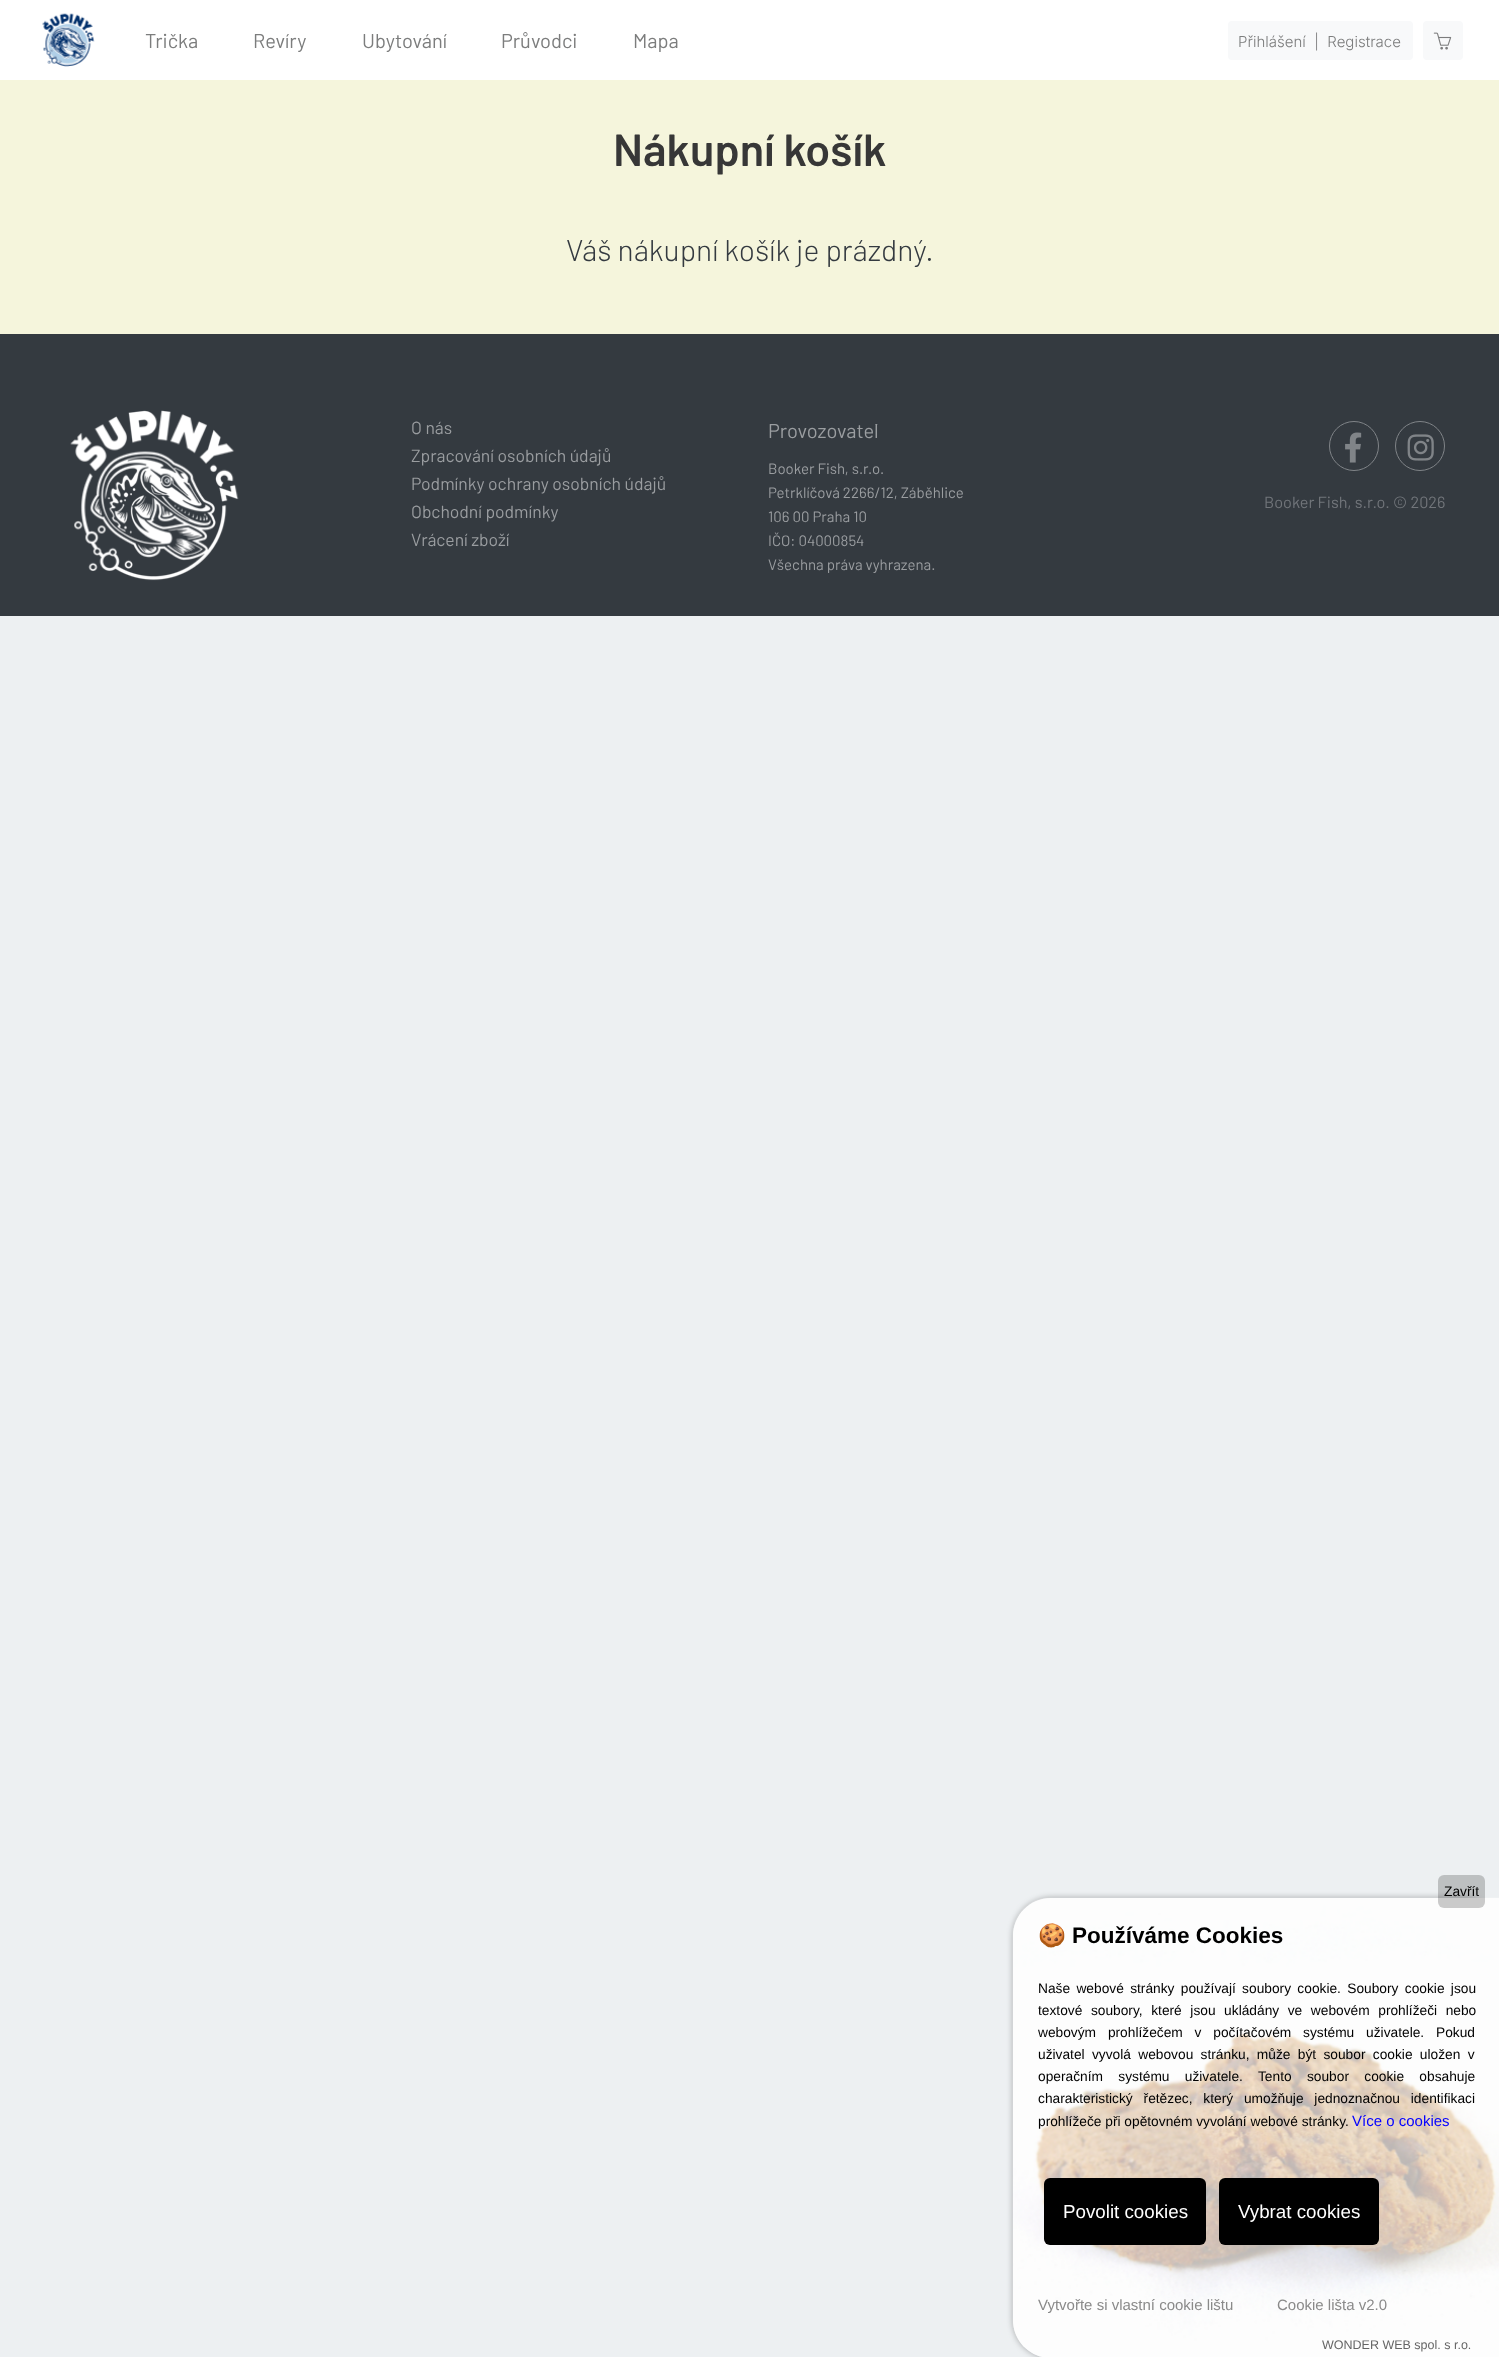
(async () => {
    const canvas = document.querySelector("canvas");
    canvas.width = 1499;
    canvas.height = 2357;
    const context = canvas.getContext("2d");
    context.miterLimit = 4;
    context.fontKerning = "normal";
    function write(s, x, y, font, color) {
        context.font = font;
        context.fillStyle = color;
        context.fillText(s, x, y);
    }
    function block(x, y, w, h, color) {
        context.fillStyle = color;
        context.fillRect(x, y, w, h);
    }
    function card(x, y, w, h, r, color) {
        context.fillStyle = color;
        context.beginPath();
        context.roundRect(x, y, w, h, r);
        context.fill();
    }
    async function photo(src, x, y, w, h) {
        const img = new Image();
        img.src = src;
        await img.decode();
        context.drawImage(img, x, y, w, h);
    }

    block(0, 0, 1499, 2357, "rgb(237, 240, 242)");
    block(0, 0, 1499, 80, "rgb(255, 255, 255)");
    await photo("media/1.png", 42, 13, 53, 54);
    write("Trička", 145, 48, "20px Barlow", "rgb(124, 125, 125)");
    write("Revíry", 253, 48, "20px Barlow", "rgb(124, 125, 125)");
    write("Ubytování", 362, 48, "20px Barlow", "rgb(124, 125, 125)");
    write("Průvodci", 501, 48, "20px Barlow", "rgb(124, 125, 125)");
    write("Mapa", 633, 48, "20px Barlow", "rgb(124, 125, 125)");
    card(1228, 21, 185, 39, 4, "rgb(248, 249, 250)");
    write("Přihlášení  |  Registrace", 1238, 47, "300 15px Inter", "rgb(124, 125, 125)");
    card(1423, 21, 40, 39, 4, "rgb(248, 249, 250)");
    await photo("media/2.png", 1433, 32, 19, 18);
    block(0, 80, 1499, 254, "rgb(245, 245, 220)");
    write("Nákupní košík", 613, 166, "600 45px Barlow", "rgb(55, 55, 55)");
    write("Váš nákupní košík je prázdný.", 566, 261, "300 30px Barlow", "rgb(52, 58, 64)");
    block(0, 334, 1499, 282, "rgb(52, 58, 64)");
    await photo("media/3.png", 70, 410, 169, 171);
    write("O nás", 411, 434, "17.5px Barlow", "rgb(154, 157, 160)");
    write("Zpracování osobních údajů", 411, 462, "17.5px Barlow", "rgb(154, 157, 160)");
    write("Podmínky ochrany osobních údajů", 411, 490, "17.5px Barlow", "rgb(154, 157, 160)");
    write("Obchodní podmínky", 411, 518, "17.5px Barlow", "rgb(154, 157, 160)");
    write("Vrácení zboží", 411, 546, "17.5px Barlow", "rgb(154, 157, 160)");
    write("Provozovatel", 768, 438, "20px Barlow", "rgb(154, 157, 160)");
    write("Booker Fish, s.r.o.", 768, 474, "15px Barlow", "rgb(154, 157, 160)");
    write("Petrklíčová 2266/12, Záběhlice", 768, 498, "15px Barlow", "rgb(154, 157, 160)");
    write("106 00 Praha 10", 768, 522, "15px Barlow", "rgb(154, 157, 160)");
    write("IČO: 04000854", 768, 546, "15px Barlow", "rgb(154, 157, 160)");
    write("Všechna práva vyhrazena.", 768, 570, "15px Barlow", "rgb(154, 157, 160)");
    context.beginPath();
    context.arc(1354, 446, 24.5, 0, Math.PI * 2);
    context.strokeStyle = "rgb(128, 132, 136)";
    context.stroke();
    await photo("media/4.png", 1345, 432, 17, 31);
    context.beginPath();
    context.arc(1420, 446, 24.5, 0, Math.PI * 2);
    context.stroke();
    await photo("media/5.png", 1407, 434, 27, 27);
    write("Booker Fish, s.r.o. © 2026", 1264, 508, "16.25px Barlow", "rgb(113, 117, 122)");
    context.save();
    context.beginPath();
    context.moveTo(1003, 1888);
    context.lineTo(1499, 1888);
    context.lineTo(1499, 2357);
    context.lineTo(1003, 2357);
    context.closePath();
    context.moveTo(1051, 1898);
    context.lineTo(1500, 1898);
    context.lineTo(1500, 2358);
    context.lineTo(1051, 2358);
    context.bezierCurveTo(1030, 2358, 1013, 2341, 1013, 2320);
    context.lineTo(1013, 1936);
    context.bezierCurveTo(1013, 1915, 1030, 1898, 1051, 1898);
    context.closePath();
    context.clip("evenodd");
    context.fillStyle = "rgba(0, 0, 0, 0.33)";
    context.filter = "blur(3px)";
    context.beginPath();
    context.roundRect(1013, 1898, 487, 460, 38);
    context.fill();
    context.filter = "none";
    context.restore();
    context.fillStyle = "rgba(255, 255, 255, 0.85)";
    context.beginPath();
    context.moveTo(1051, 1898);
    context.lineTo(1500, 1898);
    context.lineTo(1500, 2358);
    context.lineTo(1051, 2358);
    context.bezierCurveTo(1030, 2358, 1013, 2341, 1013, 2320);
    context.lineTo(1013, 1936);
    context.bezierCurveTo(1013, 1915, 1030, 1898, 1051, 1898);
    context.closePath();
    context.fill();
    await photo("media/6.png", 1012, 1897, 487, 450);
    card(1438, 1875, 47, 33, 6, "rgba(0, 0, 0, 0.2)");
    write("Zavřít", 1444, 1896, "13.75px Liberation Sans", "rgb(0, 0, 0)");
    write("🍪", 1038, 1943, "bold 22.5px Noto Color Emoji", "rgb(0, 0, 0)");
    write("Používáme Cookies", 1072, 1943, "bold 22.5px Liberation Sans", "rgb(0, 0, 0)");
    context.wordSpacing = "2.5px";
    write("Naše webové stránky používají soubory cookie. Soubory cookie jsou", 1038, 1993, "13.75px Liberation Sans", "rgb(0, 0, 0)");
    context.wordSpacing = "4.75px";
    write("textové soubory, které jsou ukládány ve webovém prohlížeči nebo", 1038, 2015, "13.75px Liberation Sans", "rgb(0, 0, 0)");
    context.wordSpacing = "8px";
    write("webovým prohlížečem v počítačovém systému uživatele. Pokud", 1038, 2037, "13.75px Liberation Sans", "rgb(0, 0, 0)");
    context.wordSpacing = "3.5px";
    write("uživatel vyvolá webovou stránku, může být soubor cookie uložen v", 1038, 2059, "13.75px Liberation Sans", "rgb(0, 0, 0)");
    context.wordSpacing = "11.5px";
    write("operačním systému uživatele. Tento soubor cookie obsahuje", 1038, 2081, "13.75px Liberation Sans", "rgb(0, 0, 0)");
    context.wordSpacing = "7px";
    write("charakteristický řetězec, který umožňuje jednoznačnou identifikaci", 1038, 2103, "13.75px Liberation Sans", "rgb(0, 0, 0)");
    context.wordSpacing = "0px";
    write("prohlížeče při opětovném vyvolání webové stránky.", 1038, 2126, "13.75px Liberation Sans", "rgb(0, 0, 0)");
    write("Více o cookies", 1352, 2126, "15px Liberation Sans", "rgb(4, 0, 255)");
    card(1044, 2178, 162, 67, 6, "rgb(0, 0, 0)");
    write("Povolit cookies", 1063, 2218, "18.75px Liberation Sans", "rgb(255, 255, 255)");
    card(1219, 2178, 160, 67, 6, "rgb(0, 0, 0)");
    write("Vybrat cookies", 1238, 2218, "18.75px Liberation Sans", "rgb(255, 255, 255)");
    write("Vytvořte si vlastní cookie lištu", 1038, 2310, "15px Liberation Sans", "rgb(138, 138, 138)");
    write("Cookie lišta v2.0", 1277, 2310, "15px Liberation Sans", "rgb(138, 138, 138)");
    write("WONDER WEB spol. s r.o.", 1322, 2349, "12.5px Liberation Sans", "rgb(102, 102, 102)");
})();
